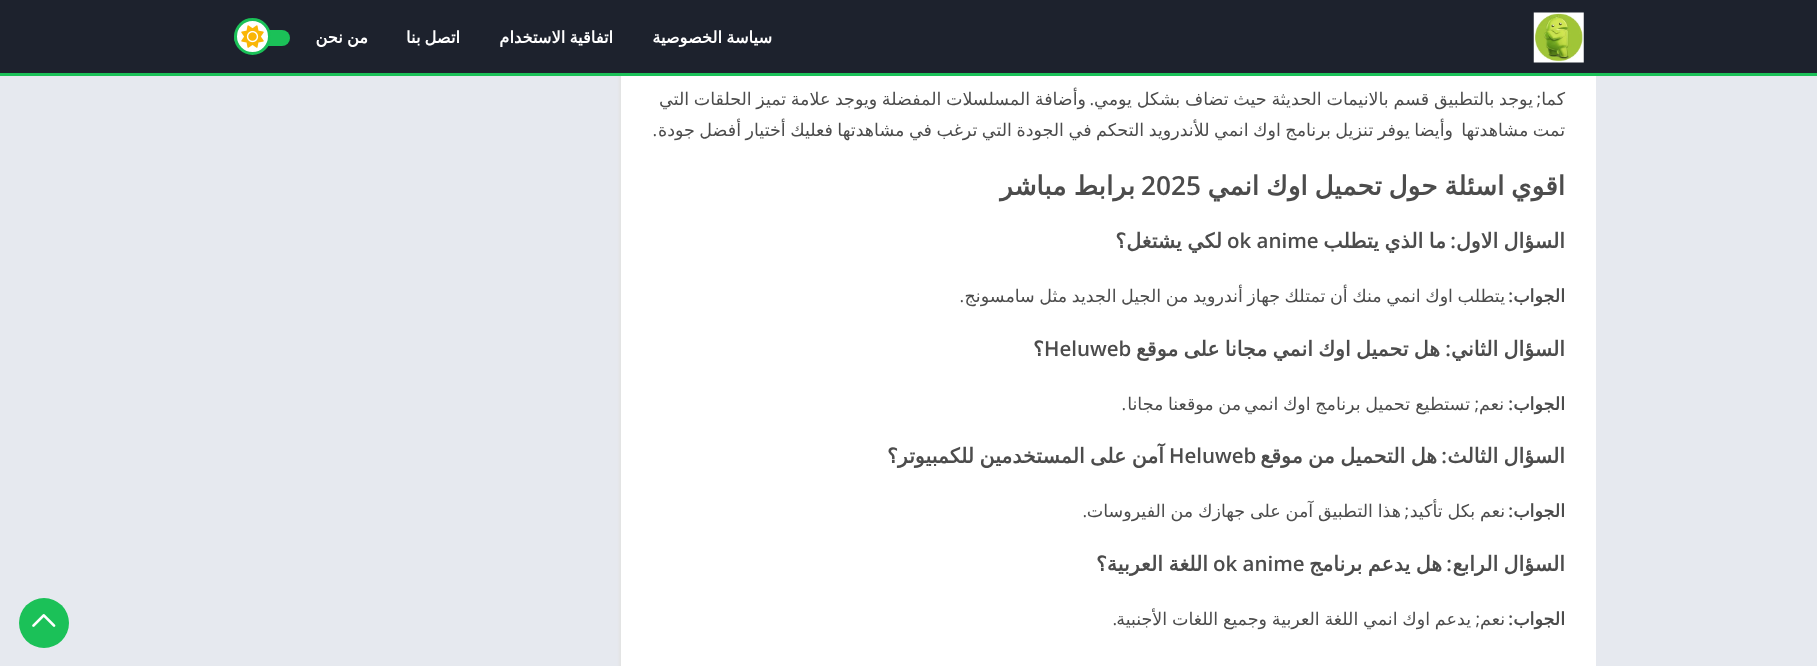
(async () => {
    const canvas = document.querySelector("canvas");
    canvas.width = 1817;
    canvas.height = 666;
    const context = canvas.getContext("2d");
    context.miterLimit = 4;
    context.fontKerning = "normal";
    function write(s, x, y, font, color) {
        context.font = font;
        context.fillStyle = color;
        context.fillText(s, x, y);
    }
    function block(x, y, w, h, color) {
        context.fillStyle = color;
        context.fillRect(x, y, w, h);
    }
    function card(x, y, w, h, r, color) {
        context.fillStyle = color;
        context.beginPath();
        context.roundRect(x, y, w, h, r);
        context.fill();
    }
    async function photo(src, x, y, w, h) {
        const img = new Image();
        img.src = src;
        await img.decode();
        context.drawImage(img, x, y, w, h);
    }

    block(0, 0, 1817, 666, "rgb(230, 233, 239)");
    context.fillStyle = "rgb(227, 227, 227)";
    context.filter = "blur(1px)";
    context.beginPath();
    context.roundRect(619, -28, 975, 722, 25);
    context.fill();
    context.filter = "none";
    block(0, 0, 1817, 73, "rgb(29, 34, 45)");
    block(0, 73, 1817, 3, "rgb(27, 193, 88)");
    await photo("media/1.png", 1533, 12, 51, 51);
    context.wordSpacing = "-1px";
    context.direction = "rtl";
    write("سياسة الخصوصية", 772, 43, "bold 16.25px DejaVu Sans", "rgb(255, 255, 255)");
    write("اتفاقية الاستخدام", 613, 43, "bold 16.25px DejaVu Sans", "rgb(255, 255, 255)");
    write("اتصل بنا", 460, 43, "bold 16.25px DejaVu Sans", "rgb(255, 255, 255)");
    write("من نحن", 368, 43, "bold 16.25px DejaVu Sans", "rgb(255, 255, 255)");
    card(234, 30, 56, 16, 8, "rgb(27, 193, 88)");
    context.fillStyle = "rgb(255, 255, 255)";
    context.beginPath();
    context.arc(252.5, 36.5, 17, 0, Math.PI * 2);
    context.fill();
    context.strokeStyle = "rgb(27, 193, 88)";
    context.lineWidth = 3;
    context.stroke();
    await photo("media/2.png", 241, 25, 23, 23);
    block(621, 76, 975, 590, "rgb(255, 255, 255)");
    context.wordSpacing = "0px";
    write("كما", 1565, 105, "17.5px DejaVu Sans", "rgb(76, 76, 76)");
    context.wordSpacing = "-0.75px";
    write("يوجد بالتطبيق قسم بالانيمات الحديثة حيث تضاف بشكل يومي", 1533, 105, "17.5px DejaVu Sans", "rgb(76, 76, 76)");
    context.wordSpacing = "0px";
    write(".", 1094, 105, "17.5px Open Sans", "rgb(76, 76, 76)");
    context.wordSpacing = "-1px";
    write("وأضافة المسلسلات المفضلة ويوجد علامة تميز الحلقات التي", 1086, 105, "17.5px DejaVu Sans", "rgb(76, 76, 76)");
    context.wordSpacing = "0px";
    write(";", 1541, 105, "17.5px Open Sans", "rgb(76, 76, 76)");
    context.wordSpacing = "-1px";
    write("تمت مشاهدتها", 1565, 136, "17.5px DejaVu Sans", "rgb(76, 76, 76)");
    write("وأيضا يوفر تنزيل برنامج اوك انمي للأندرويد التحكم في الجودة التي ترغب في مشاهدتها فعليك أختيار أفضل جودة", 1453, 136, "17.5px DejaVu Sans", "rgb(76, 76, 76)");
    context.wordSpacing = "0px";
    write(".", 657, 136, "17.5px Open Sans", "rgb(76, 76, 76)");
    context.save();
    context.beginPath();
    context.rect(653, 0, 912, 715);
    context.clip();
    context.wordSpacing = "-1.5px";
    write("اقوي اسئلة حول تحميل اوك انمي", 1565, 195, "bold 26.25px DejaVu Sans", "rgb(76, 76, 76)");
    context.restore();
    context.direction = "ltr";
    write("2025", 1141, 195, "600 26.25px Open Sans", "rgb(76, 76, 76)");
    context.wordSpacing = "-1px";
    context.direction = "rtl";
    write("برابط مباشر", 1135, 195, "bold 26.25px DejaVu Sans", "rgb(76, 76, 76)");
    write("السؤال الاول", 1565, 248, "bold 20.5px DejaVu Sans", "rgb(76, 76, 76)");
    context.wordSpacing = "0px";
    write(":", 1456, 248, "600 20.5px Open Sans", "rgb(76, 76, 76)");
    context.wordSpacing = "-1px";
    write("ما الذي يتطلب", 1446, 248, "bold 20.5px DejaVu Sans", "rgb(76, 76, 76)");
    context.wordSpacing = "0px";
    context.direction = "ltr";
    write("ok anime", 1227, 248, "600 20.5px Open Sans", "rgb(76, 76, 76)");
    context.wordSpacing = "-1px";
    context.direction = "rtl";
    write("لكي يشتغل؟", 1222, 248, "bold 20.5px DejaVu Sans", "rgb(76, 76, 76)");
    context.wordSpacing = "0px";
    write("الجواب", 1565, 302, "bold 17.5px DejaVu Sans", "rgb(76, 76, 76)");
    write(":", 1513, 302, "600 17.5px Open Sans", "rgb(76, 76, 76)");
    context.wordSpacing = "-1px";
    write("يتطلب اوك انمي منك أن تمتلك جهاز أندرويد من الجيل الجديد مثل سامسونج", 1505, 302, "17.5px DejaVu Sans", "rgb(76, 76, 76)");
    context.wordSpacing = "0px";
    write(".", 964, 302, "17.5px Open Sans", "rgb(76, 76, 76)");
    context.wordSpacing = "-1px";
    write("السؤال الثاني", 1565, 356, "bold 20.5px DejaVu Sans", "rgb(76, 76, 76)");
    context.wordSpacing = "0px";
    write(":", 1451, 356, "600 20.5px Open Sans", "rgb(76, 76, 76)");
    context.wordSpacing = "-1.25px";
    write("هل تحميل اوك انمي مجانا على موقع", 1440, 356, "bold 20.5px DejaVu Sans", "rgb(76, 76, 76)");
    context.wordSpacing = "0px";
    context.direction = "ltr";
    write("Heluweb", 1044, 356, "600 20.5px Open Sans", "rgb(76, 76, 76)");
    context.direction = "rtl";
    write("؟", 1044, 356, "bold 20.5px DejaVu Sans", "rgb(76, 76, 76)");
    write("الجواب", 1565, 410, "bold 17.5px DejaVu Sans", "rgb(76, 76, 76)");
    write(":", 1513, 410, "600 17.5px Open Sans", "rgb(76, 76, 76)");
    write("نعم", 1504, 410, "17.5px DejaVu Sans", "rgb(76, 76, 76)");
    write(";", 1479, 410, "17.5px Open Sans", "rgb(76, 76, 76)");
    write("تستطيع", 1470, 410, "17.5px DejaVu Sans", "rgb(76, 76, 76)");
    context.wordSpacing = "-1px";
    write("تحميل برنامج اوك انمي", 1410, 410, "17.5px DejaVu Sans", "rgb(76, 76, 76)");
    write("من موقعنا مجانا", 1241, 410, "17.5px DejaVu Sans", "rgb(76, 76, 76)");
    context.wordSpacing = "0px";
    write(".", 1126, 410, "17.5px Open Sans", "rgb(76, 76, 76)");
    context.wordSpacing = "-1px";
    write("السؤال الثالث", 1565, 463, "bold 20.5px DejaVu Sans", "rgb(76, 76, 76)");
    context.wordSpacing = "0px";
    write(":", 1447, 463, "600 20.5px Open Sans", "rgb(76, 76, 76)");
    context.wordSpacing = "-1px";
    write("هل التحميل من موقع", 1437, 463, "bold 20.5px DejaVu Sans", "rgb(76, 76, 76)");
    context.wordSpacing = "0px";
    context.direction = "ltr";
    write("Heluweb", 1169, 463, "600 20.5px Open Sans", "rgb(76, 76, 76)");
    context.wordSpacing = "-1px";
    context.direction = "rtl";
    write("آمن على المستخدمين للكمبيوتر؟", 1164, 463, "bold 20.5px DejaVu Sans", "rgb(76, 76, 76)");
    context.wordSpacing = "0px";
    write("الجواب", 1565, 517, "bold 17.5px DejaVu Sans", "rgb(76, 76, 76)");
    write(":", 1513, 517, "600 17.5px Open Sans", "rgb(76, 76, 76)");
    context.wordSpacing = "-0.75px";
    write("نعم بكل تأكيد", 1505, 517, "17.5px DejaVu Sans", "rgb(76, 76, 76)");
    context.wordSpacing = "0px";
    write(";", 1409, 517, "17.5px Open Sans", "rgb(76, 76, 76)");
    context.wordSpacing = "-0.75px";
    write("هذا التطبيق آمن على جهازك من الفيروسات", 1401, 517, "17.5px DejaVu Sans", "rgb(76, 76, 76)");
    context.wordSpacing = "0px";
    write(".", 1087, 517, "17.5px Open Sans", "rgb(76, 76, 76)");
    context.wordSpacing = "-1px";
    write("السؤال الرابع", 1565, 571, "bold 20.5px DejaVu Sans", "rgb(76, 76, 76)");
    context.wordSpacing = "0px";
    write(":", 1452, 571, "600 20.5px Open Sans", "rgb(76, 76, 76)");
    context.wordSpacing = "-1px";
    write("هل يدعم برنامج", 1442, 571, "bold 20.5px DejaVu Sans", "rgb(76, 76, 76)");
    context.wordSpacing = "0px";
    context.direction = "ltr";
    write("ok anime", 1213, 571, "600 20.5px Open Sans", "rgb(76, 76, 76)");
    context.wordSpacing = "-1px";
    context.direction = "rtl";
    write("اللغة العربية؟", 1208, 571, "bold 20.5px DejaVu Sans", "rgb(76, 76, 76)");
    context.wordSpacing = "0px";
    write("الجواب", 1565, 625, "bold 17.5px DejaVu Sans", "rgb(76, 76, 76)");
    context.wordSpacing = "-0.75px";
    write("يدعم اوك انمي اللغة العربية وجميع اللغات الأجنبية", 1471, 625, "17.5px DejaVu Sans", "rgb(76, 76, 76)");
    context.wordSpacing = "0px";
    write(":", 1513, 625, "600 17.5px Open Sans", "rgb(76, 76, 76)");
    write("نعم", 1505, 625, "17.5px DejaVu Sans", "rgb(76, 76, 76)");
    write(";", 1480, 625, "17.5px Open Sans", "rgb(76, 76, 76)");
    write(".", 1117, 625, "17.5px Open Sans", "rgb(76, 76, 76)");
    context.fillStyle = "rgb(27, 193, 88)";
    context.beginPath();
    context.arc(44, 623, 25, 0, Math.PI * 2);
    context.fill();
    await photo("media/3.png", 32, 614, 24, 13);
})();
